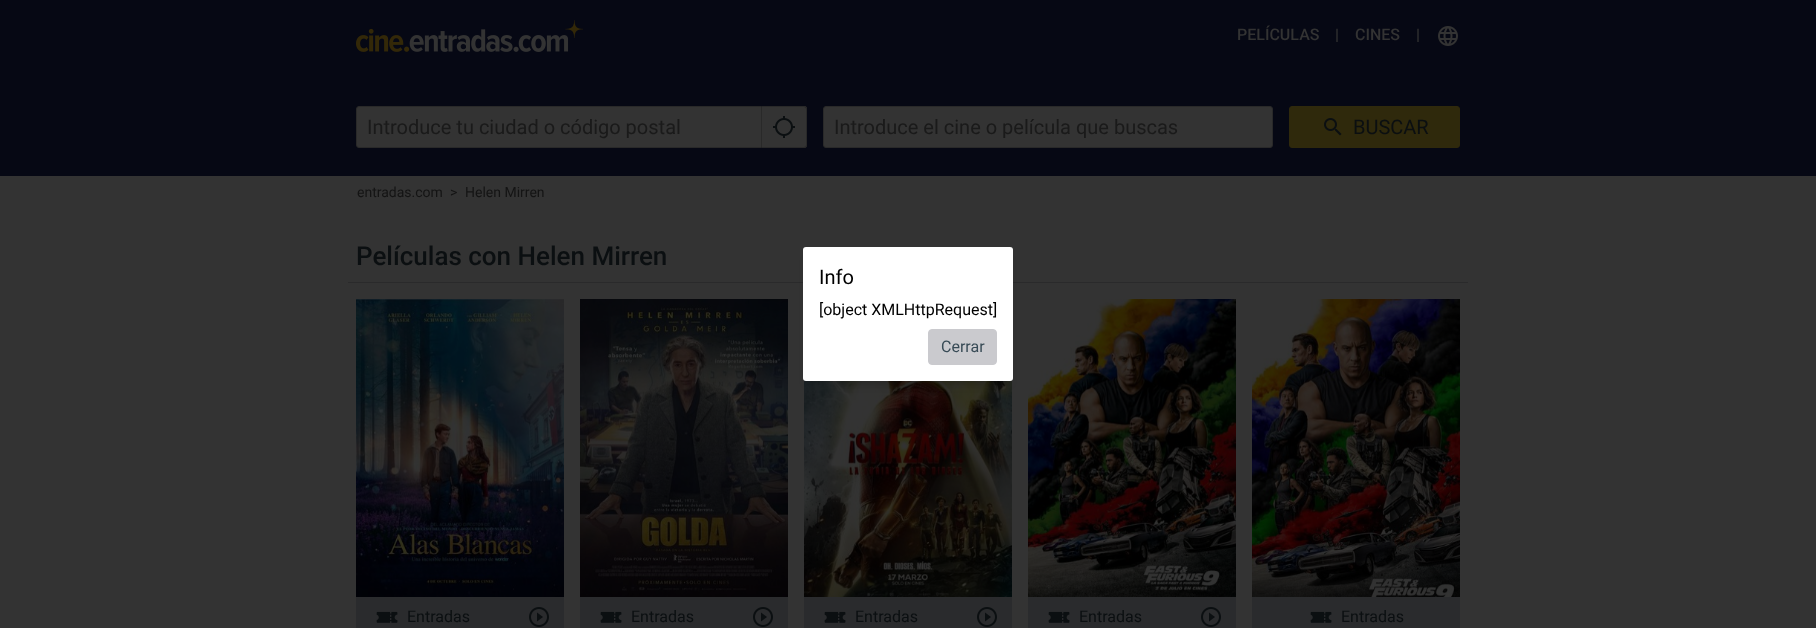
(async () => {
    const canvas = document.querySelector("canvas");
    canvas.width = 1816;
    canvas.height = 628;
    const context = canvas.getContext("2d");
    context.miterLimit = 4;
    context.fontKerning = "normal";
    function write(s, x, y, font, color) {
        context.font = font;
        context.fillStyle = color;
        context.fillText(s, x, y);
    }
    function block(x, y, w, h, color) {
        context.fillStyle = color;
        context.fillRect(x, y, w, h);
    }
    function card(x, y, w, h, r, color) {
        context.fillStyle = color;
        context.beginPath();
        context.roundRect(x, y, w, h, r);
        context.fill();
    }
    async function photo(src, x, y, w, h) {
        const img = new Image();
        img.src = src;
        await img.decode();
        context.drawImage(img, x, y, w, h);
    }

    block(0, 0, 1816, 628, "rgb(51, 51, 51)");
    block(0, 0, 1816, 176, "rgb(6, 8, 20)");
    await photo("media/1.png", 356, 20, 227, 32);
    write("PELÍCULAS", 1237, 40, "500 16px Roboto", "rgb(51, 51, 51)");
    write("|", 1335, 40, "500 16px Roboto", "rgb(51, 51, 51)");
    write("CINES", 1355, 40, "500 16px Roboto", "rgb(51, 51, 51)");
    write("|", 1416, 40, "500 16px Roboto", "rgb(51, 51, 51)");
    await photo("media/2.png", 1438, 26, 20, 20);
    context.beginPath();
    context.roundRect(356.5, 106.5, 405, 41, [2.5, 0, 0, 2.5]);
    context.fill();
    context.strokeStyle = "rgb(41, 41, 41)";
    context.stroke();
    write("Introduce tu ciudad o código postal", 367, 134, "20px Roboto", "rgb(26, 26, 26)");
    context.fillStyle = "rgb(51, 51, 51)";
    context.beginPath();
    context.roundRect(762, 106, 45, 42, [0, 3, 3, 0]);
    context.fill();
    context.fillStyle = "rgb(41, 41, 41)";
    context.beginPath();
    context.moveTo(762, 106);
    context.lineTo(804, 106);
    context.bezierCurveTo(806, 106, 807, 107, 807, 109);
    context.lineTo(807, 145);
    context.bezierCurveTo(807, 147, 806, 148, 804, 148);
    context.lineTo(762, 148);
    context.closePath();
    context.moveTo(762, 107);
    context.lineTo(804, 107);
    context.bezierCurveTo(805, 107, 806, 108, 806, 109);
    context.lineTo(806, 145);
    context.bezierCurveTo(806, 146, 805, 147, 804, 147);
    context.lineTo(762, 147);
    context.closePath();
    context.fill("evenodd");
    await photo("media/3.png", 773, 116, 22, 22);
    context.fillStyle = "rgb(51, 51, 51)";
    context.beginPath();
    context.roundRect(823.5, 106.5, 449, 41, 2.5);
    context.fill();
    context.stroke();
    write("Introduce el cine o película que buscas", 834, 134, "20px Roboto", "rgb(26, 26, 26)");
    context.fillStyle = "rgb(47, 41, 12)";
    context.beginPath();
    context.roundRect(1289.5, 106.5, 170, 41, 2.5);
    context.fill();
    context.strokeStyle = "rgb(47, 41, 12)";
    context.stroke();
    await photo("media/4.png", 1324, 118, 18, 18);
    write("BUSCAR", 1353, 134, "20px Roboto", "rgb(11, 15, 17)");
    write("entradas.com", 357, 197, "14px Roboto", "rgb(20, 20, 20)");
    write(">", 450, 197, "14px Roboto", "rgb(20, 20, 20)");
    write("Helen Mirren", 465, 197, "14px Roboto", "rgb(20, 20, 20)");
    block(348, 282, 1120, 1, "rgb(42, 42, 43)");
    write("Películas con Helen Mirren", 356, 265, "500 26px Roboto", "rgb(11, 15, 17)");
    await photo("media/5.png", 356, 299, 208, 298);
    block(356, 597, 208, 31, "rgb(42, 43, 45)");
    await photo("media/6.png", 376, 611, 22, 12);
    write("Entradas", 407, 622, "16px Roboto", "rgb(11, 15, 17)");
    await photo("media/7.png", 529, 607, 20, 20);
    await photo("media/8.png", 580, 299, 208, 298);
    block(580, 597, 208, 31, "rgb(42, 43, 45)");
    await photo("media/6.png", 600, 611, 22, 12);
    write("Entradas", 631, 622, "16px Roboto", "rgb(11, 15, 17)");
    await photo("media/7.png", 753, 607, 20, 20);
    await photo("media/9.png", 804, 380, 208, 217);
    block(804, 597, 208, 31, "rgb(42, 43, 45)");
    await photo("media/6.png", 824, 611, 22, 12);
    write("Entradas", 855, 622, "16px Roboto", "rgb(11, 15, 17)");
    await photo("media/7.png", 977, 607, 20, 20);
    await photo("media/10.png", 1028, 299, 208, 298);
    block(1028, 597, 208, 31, "rgb(42, 43, 45)");
    await photo("media/6.png", 1048, 611, 22, 12);
    write("Entradas", 1079, 622, "16px Roboto", "rgb(11, 15, 17)");
    await photo("media/7.png", 1201, 607, 20, 20);
    await photo("media/11.png", 1252, 299, 208, 298);
    block(1252, 597, 208, 31, "rgb(42, 43, 45)");
    await photo("media/6.png", 1310, 611, 22, 12);
    write("Entradas", 1341, 622, "16px Roboto", "rgb(11, 15, 17)");
    context.fillStyle = "rgba(0, 0, 0, 0.2)";
    context.filter = "blur(4.5px)";
    context.beginPath();
    context.rect(808, 260, 200, 124);
    context.fill();
    context.filter = "none";
    card(803, 247, 210, 134, 3, "rgb(255, 255, 255)");
    write("Info", 819, 284, "20px Roboto", "rgb(0, 0, 0)");
    write("[object XMLHttpRequest]", 819, 315, "16px Roboto", "rgb(0, 0, 0)");
    context.fillStyle = "rgb(202, 202, 206)";
    context.beginPath();
    context.roundRect(928.5, 329.5, 68, 35, 3.5);
    context.fill();
    context.strokeStyle = "rgb(202, 202, 206)";
    context.stroke();
    write("Cerrar", 941, 352, "16px Roboto", "rgb(56, 75, 86)");
})();
